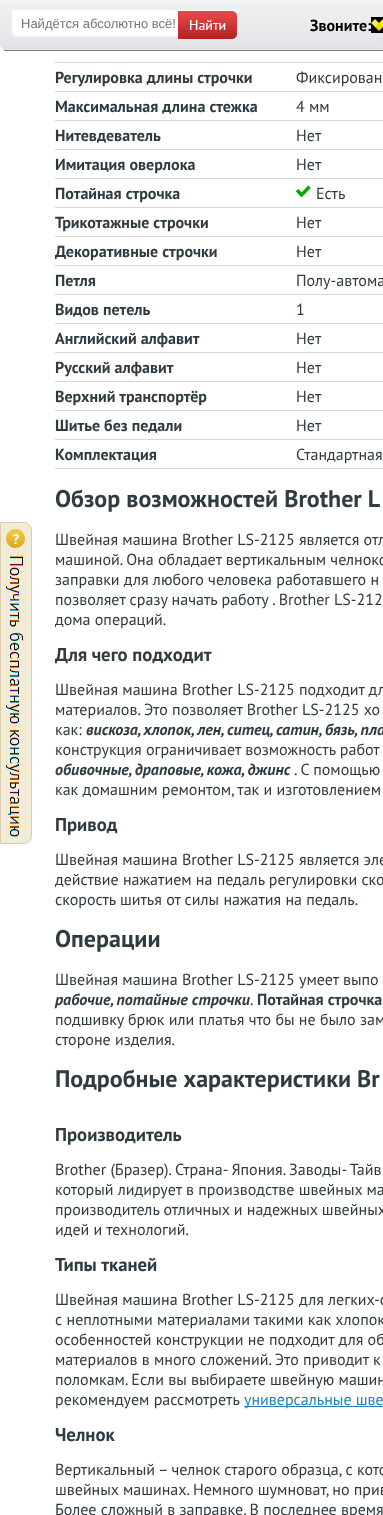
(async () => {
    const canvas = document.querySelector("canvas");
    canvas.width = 383;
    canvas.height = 1515;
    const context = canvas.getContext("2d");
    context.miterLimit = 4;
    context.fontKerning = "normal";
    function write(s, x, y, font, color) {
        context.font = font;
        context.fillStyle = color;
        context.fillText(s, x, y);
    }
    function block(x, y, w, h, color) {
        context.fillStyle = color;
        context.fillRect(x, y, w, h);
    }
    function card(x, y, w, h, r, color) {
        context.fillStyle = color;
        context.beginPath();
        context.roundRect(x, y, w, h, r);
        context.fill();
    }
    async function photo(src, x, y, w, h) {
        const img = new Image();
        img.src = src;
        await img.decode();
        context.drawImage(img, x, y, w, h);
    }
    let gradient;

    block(0, 0, 383, 1515, "rgb(255, 255, 255)");
    context.fillStyle = "rgb(242, 236, 215)";
    context.beginPath();
    context.roundRect(0.5, 522.5, 31, 321, [0, 7.5, 7.5, 0]);
    context.fill();
    context.strokeStyle = "rgb(218, 204, 174)";
    context.stroke();
    await photo("media/1.png", 6, 529, 19, 19);
    await photo("media/2.png", 6, 556, 18, 281);
    context.save();
    context.beginPath();
    context.moveTo(0, 0);
    context.lineTo(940, 0);
    context.lineTo(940, 43);
    context.bezierCurveTo(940, 47.5, 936.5, 51, 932, 51);
    context.lineTo(8, 51);
    context.bezierCurveTo(3.5, 51, 0, 47.5, 0, 43);
    context.closePath();
    context.clip();
    gradient = context.createLinearGradient(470, 0, 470, 50);
    gradient.addColorStop(0, "rgb(241, 242, 242)");
    gradient.addColorStop(1, "rgb(225, 228, 230)");
    context.fillStyle = gradient;
    context.fillRect(0, 0, 383, 50);
    context.restore();
    block(4, 50, 379, 1, "rgb(126, 128, 129)");
    context.fillStyle = "rgb(238, 240, 241)";
    context.beginPath();
    context.moveTo(12, 32);
    context.bezierCurveTo(12, 35, 13, 37, 16, 37);
    context.lineTo(233, 37);
    context.bezierCurveTo(236, 37, 237, 35, 237, 32);
    context.bezierCurveTo(237, 34, 235, 36, 233, 36);
    context.lineTo(16, 36);
    context.bezierCurveTo(14, 36, 12, 34, 12, 32);
    context.closePath();
    context.fill();
    card(12, 10, 225, 26, 4, "rgb(255, 255, 255)");
    write("Найдётся абсолютно всё!", 21, 28, "13px Liberation Sans", "rgb(117, 117, 117)");
    await photo("media/3.png", 178, 11, 59, 28);
    write("Звоните:", 310, 31, "bold 16px PT Sans", "rgb(0, 0, 0)");
    await photo("media/4.png", 371, 17, 12, 16);
    block(55, 62, 328, 1, "rgb(214, 214, 214)");
    write("Регулировка длины строчки", 55, 83, "bold 16px PT Sans", "rgb(47, 58, 65)");
    write("Фиксирован", 296, 83, "16px PT Sans", "rgb(47, 58, 65)");
    block(55, 91, 328, 1, "rgb(214, 214, 214)");
    write("Максимальная длина стежка", 55, 112, "bold 16px PT Sans", "rgb(47, 58, 65)");
    write("4 мм", 296, 112, "16px PT Sans", "rgb(47, 58, 65)");
    block(55, 120, 328, 1, "rgb(214, 214, 214)");
    write("Нитевдеватель", 55, 141, "bold 16px PT Sans", "rgb(47, 58, 65)");
    write("Нет", 296, 141, "16px PT Sans", "rgb(47, 58, 65)");
    block(55, 149, 328, 1, "rgb(214, 214, 214)");
    write("Имитация оверлока", 55, 170, "bold 16px PT Sans", "rgb(47, 58, 65)");
    write("Нет", 296, 170, "16px PT Sans", "rgb(47, 58, 65)");
    block(55, 178, 328, 1, "rgb(214, 214, 214)");
    write("Потайная строчка", 55, 199, "bold 16px PT Sans", "rgb(47, 58, 65)");
    await photo("media/5.png", 296, 185, 15, 12);
    write("Есть", 316, 199, "16px PT Sans", "rgb(47, 58, 65)");
    block(55, 207, 328, 1, "rgb(214, 214, 214)");
    write("Трикотажные строчки", 55, 228, "bold 16px PT Sans", "rgb(47, 58, 65)");
    write("Нет", 296, 228, "16px PT Sans", "rgb(47, 58, 65)");
    block(55, 236, 328, 1, "rgb(214, 214, 214)");
    write("Декоративные строчки", 55, 257, "bold 16px PT Sans", "rgb(47, 58, 65)");
    write("Нет", 296, 257, "16px PT Sans", "rgb(47, 58, 65)");
    block(55, 265, 328, 1, "rgb(214, 214, 214)");
    write("Петля", 55, 286, "bold 16px PT Sans", "rgb(47, 58, 65)");
    write("Полу-автома", 296, 286, "16px PT Sans", "rgb(47, 58, 65)");
    block(55, 294, 328, 1, "rgb(214, 214, 214)");
    write("Видов петель", 55, 315, "bold 16px PT Sans", "rgb(47, 58, 65)");
    write("1", 296, 315, "16px PT Sans", "rgb(47, 58, 65)");
    block(55, 323, 328, 1, "rgb(214, 214, 214)");
    write("Английский алфавит", 55, 344, "bold 16px PT Sans", "rgb(47, 58, 65)");
    write("Нет", 296, 344, "16px PT Sans", "rgb(47, 58, 65)");
    block(55, 352, 328, 1, "rgb(214, 214, 214)");
    write("Русский алфавит", 55, 373, "bold 16px PT Sans", "rgb(47, 58, 65)");
    write("Нет", 296, 373, "16px PT Sans", "rgb(47, 58, 65)");
    block(55, 381, 328, 1, "rgb(214, 214, 214)");
    write("Верхний транспортёр", 55, 402, "bold 16px PT Sans", "rgb(47, 58, 65)");
    write("Нет", 296, 402, "16px PT Sans", "rgb(47, 58, 65)");
    block(55, 410, 328, 1, "rgb(214, 214, 214)");
    write("Шитье без педали", 55, 431, "bold 16px PT Sans", "rgb(47, 58, 65)");
    write("Нет", 296, 431, "16px PT Sans", "rgb(47, 58, 65)");
    block(55, 439, 328, 1, "rgb(214, 214, 214)");
    block(55, 468, 328, 1, "rgb(214, 214, 214)");
    write("Комплектация", 55, 460, "bold 16px PT Sans", "rgb(47, 58, 65)");
    write("Стандартная", 296, 460, "16px PT Sans", "rgb(47, 58, 65)");
    write("Обзор возможностей Brother L", 55, 507, "bold 24px PT Sans", "rgb(47, 58, 65)");
    write("Швейная машина Brother LS-2125 является отл", 55, 545, "16px PT Sans", "rgb(47, 58, 65)");
    write("машиной. Она обладает вертикальным челноко", 55, 565, "16px PT Sans", "rgb(47, 58, 65)");
    write("заправки для любого человека работавшего н", 55, 585, "16px PT Sans", "rgb(47, 58, 65)");
    write("позволяет сразу начать работу . Brother LS-212", 55, 605, "16px PT Sans", "rgb(47, 58, 65)");
    write("дома операций.", 55, 625, "16px PT Sans", "rgb(47, 58, 65)");
    write("Для чего подходит", 55, 661, "bold 18.75px PT Sans", "rgb(47, 58, 65)");
    write("Швейная машина Brother LS-2125 подходит дл", 55, 695, "16px PT Sans", "rgb(47, 58, 65)");
    write("материалов. Это позволяет Brother LS-2125 хо", 55, 715, "16px PT Sans", "rgb(47, 58, 65)");
    write("как:", 55, 735, "16px PT Sans", "rgb(47, 58, 65)");
    write("вискоза, хлопок, лен, ситец, сатин, бязь, пла", 86, 735, "italic bold 16px PT Sans", "rgb(47, 58, 65)");
    write("конструкция ограничивает возможность работ", 55, 755, "16px PT Sans", "rgb(47, 58, 65)");
    write("обивочные, драповые, кожа, джинс", 55, 775, "italic bold 16px PT Sans", "rgb(47, 58, 65)");
    write(". С помощью", 294, 775, "16px PT Sans", "rgb(47, 58, 65)");
    write("как домашним ремонтом, так и изготовлением", 55, 795, "16px PT Sans", "rgb(47, 58, 65)");
    write("Привод", 55, 831, "bold 18.75px PT Sans", "rgb(47, 58, 65)");
    write("Швейная машина Brother LS-2125 является эле", 55, 865, "16px PT Sans", "rgb(47, 58, 65)");
    write("действие нажатием на педаль регулировки ско", 55, 885, "16px PT Sans", "rgb(47, 58, 65)");
    write("скорость шитья от силы нажатия на педаль.", 55, 905, "16px PT Sans", "rgb(47, 58, 65)");
    write("Операции", 55, 947, "bold 24px PT Sans", "rgb(47, 58, 65)");
    write("Швейная машина Brother LS-2125 умеет выпо", 55, 985, "16px PT Sans", "rgb(47, 58, 65)");
    write("рабочие, потайные строчки", 55, 1005, "italic bold 16px PT Sans", "rgb(47, 58, 65)");
    write(".", 250, 1005, "16px PT Sans", "rgb(47, 58, 65)");
    write("Потайная строчка", 257, 1005, "bold 16px PT Sans", "rgb(47, 58, 65)");
    write("подшивку брюк или платья что бы не было зам", 55, 1025, "16px PT Sans", "rgb(47, 58, 65)");
    write("стороне изделия.", 55, 1045, "16px PT Sans", "rgb(47, 58, 65)");
    write("Подробные характеристики Br", 55, 1087, "bold 24px PT Sans", "rgb(47, 58, 65)");
    write("Производитель", 55, 1141, "bold 18.75px PT Sans", "rgb(47, 58, 65)");
    write("Brother (Бразер). Страна- Япония. Заводы- Тайв", 55, 1175, "16px PT Sans", "rgb(47, 58, 65)");
    write("который лидирует в производстве швейных ма", 55, 1195, "16px PT Sans", "rgb(47, 58, 65)");
    write("производитель отличных и надежных швейных", 55, 1215, "16px PT Sans", "rgb(47, 58, 65)");
    write("идей и технологий.", 55, 1235, "16px PT Sans", "rgb(47, 58, 65)");
    write("Типы тканей", 55, 1271, "bold 18.75px PT Sans", "rgb(47, 58, 65)");
    write("Швейная машина Brother LS-2125 для легких-с", 55, 1305, "16px PT Sans", "rgb(47, 58, 65)");
    write("с неплотными материалами такими как хлопок", 55, 1325, "16px PT Sans", "rgb(47, 58, 65)");
    write("особенностей конструкции не подходит для об", 55, 1345, "16px PT Sans", "rgb(47, 58, 65)");
    write("материалов в много сложений. Это приводит к", 55, 1365, "16px PT Sans", "rgb(47, 58, 65)");
    write("поломкам. Если вы выбираете швейную машин", 55, 1385, "16px PT Sans", "rgb(47, 58, 65)");
    write("рекомендуем рассмотреть", 55, 1405, "16px PT Sans", "rgb(47, 58, 65)");
    block(244, 1406, 139, 1, "rgb(33, 129, 180)");
    write("универсальные шве", 244, 1405, "16px PT Sans", "rgb(33, 129, 180)");
    write("Челнок", 55, 1441, "bold 18.75px PT Sans", "rgb(47, 58, 65)");
    write("Вертикальный – челнок старого образца, с кото", 55, 1475, "16px PT Sans", "rgb(47, 58, 65)");
    write("швейных машинах. Немного шумноват, но прив", 55, 1495, "16px PT Sans", "rgb(47, 58, 65)");
    write("Более сложный в заправке. В последнее время", 55, 1515, "16px PT Sans", "rgb(47, 58, 65)");
})();
